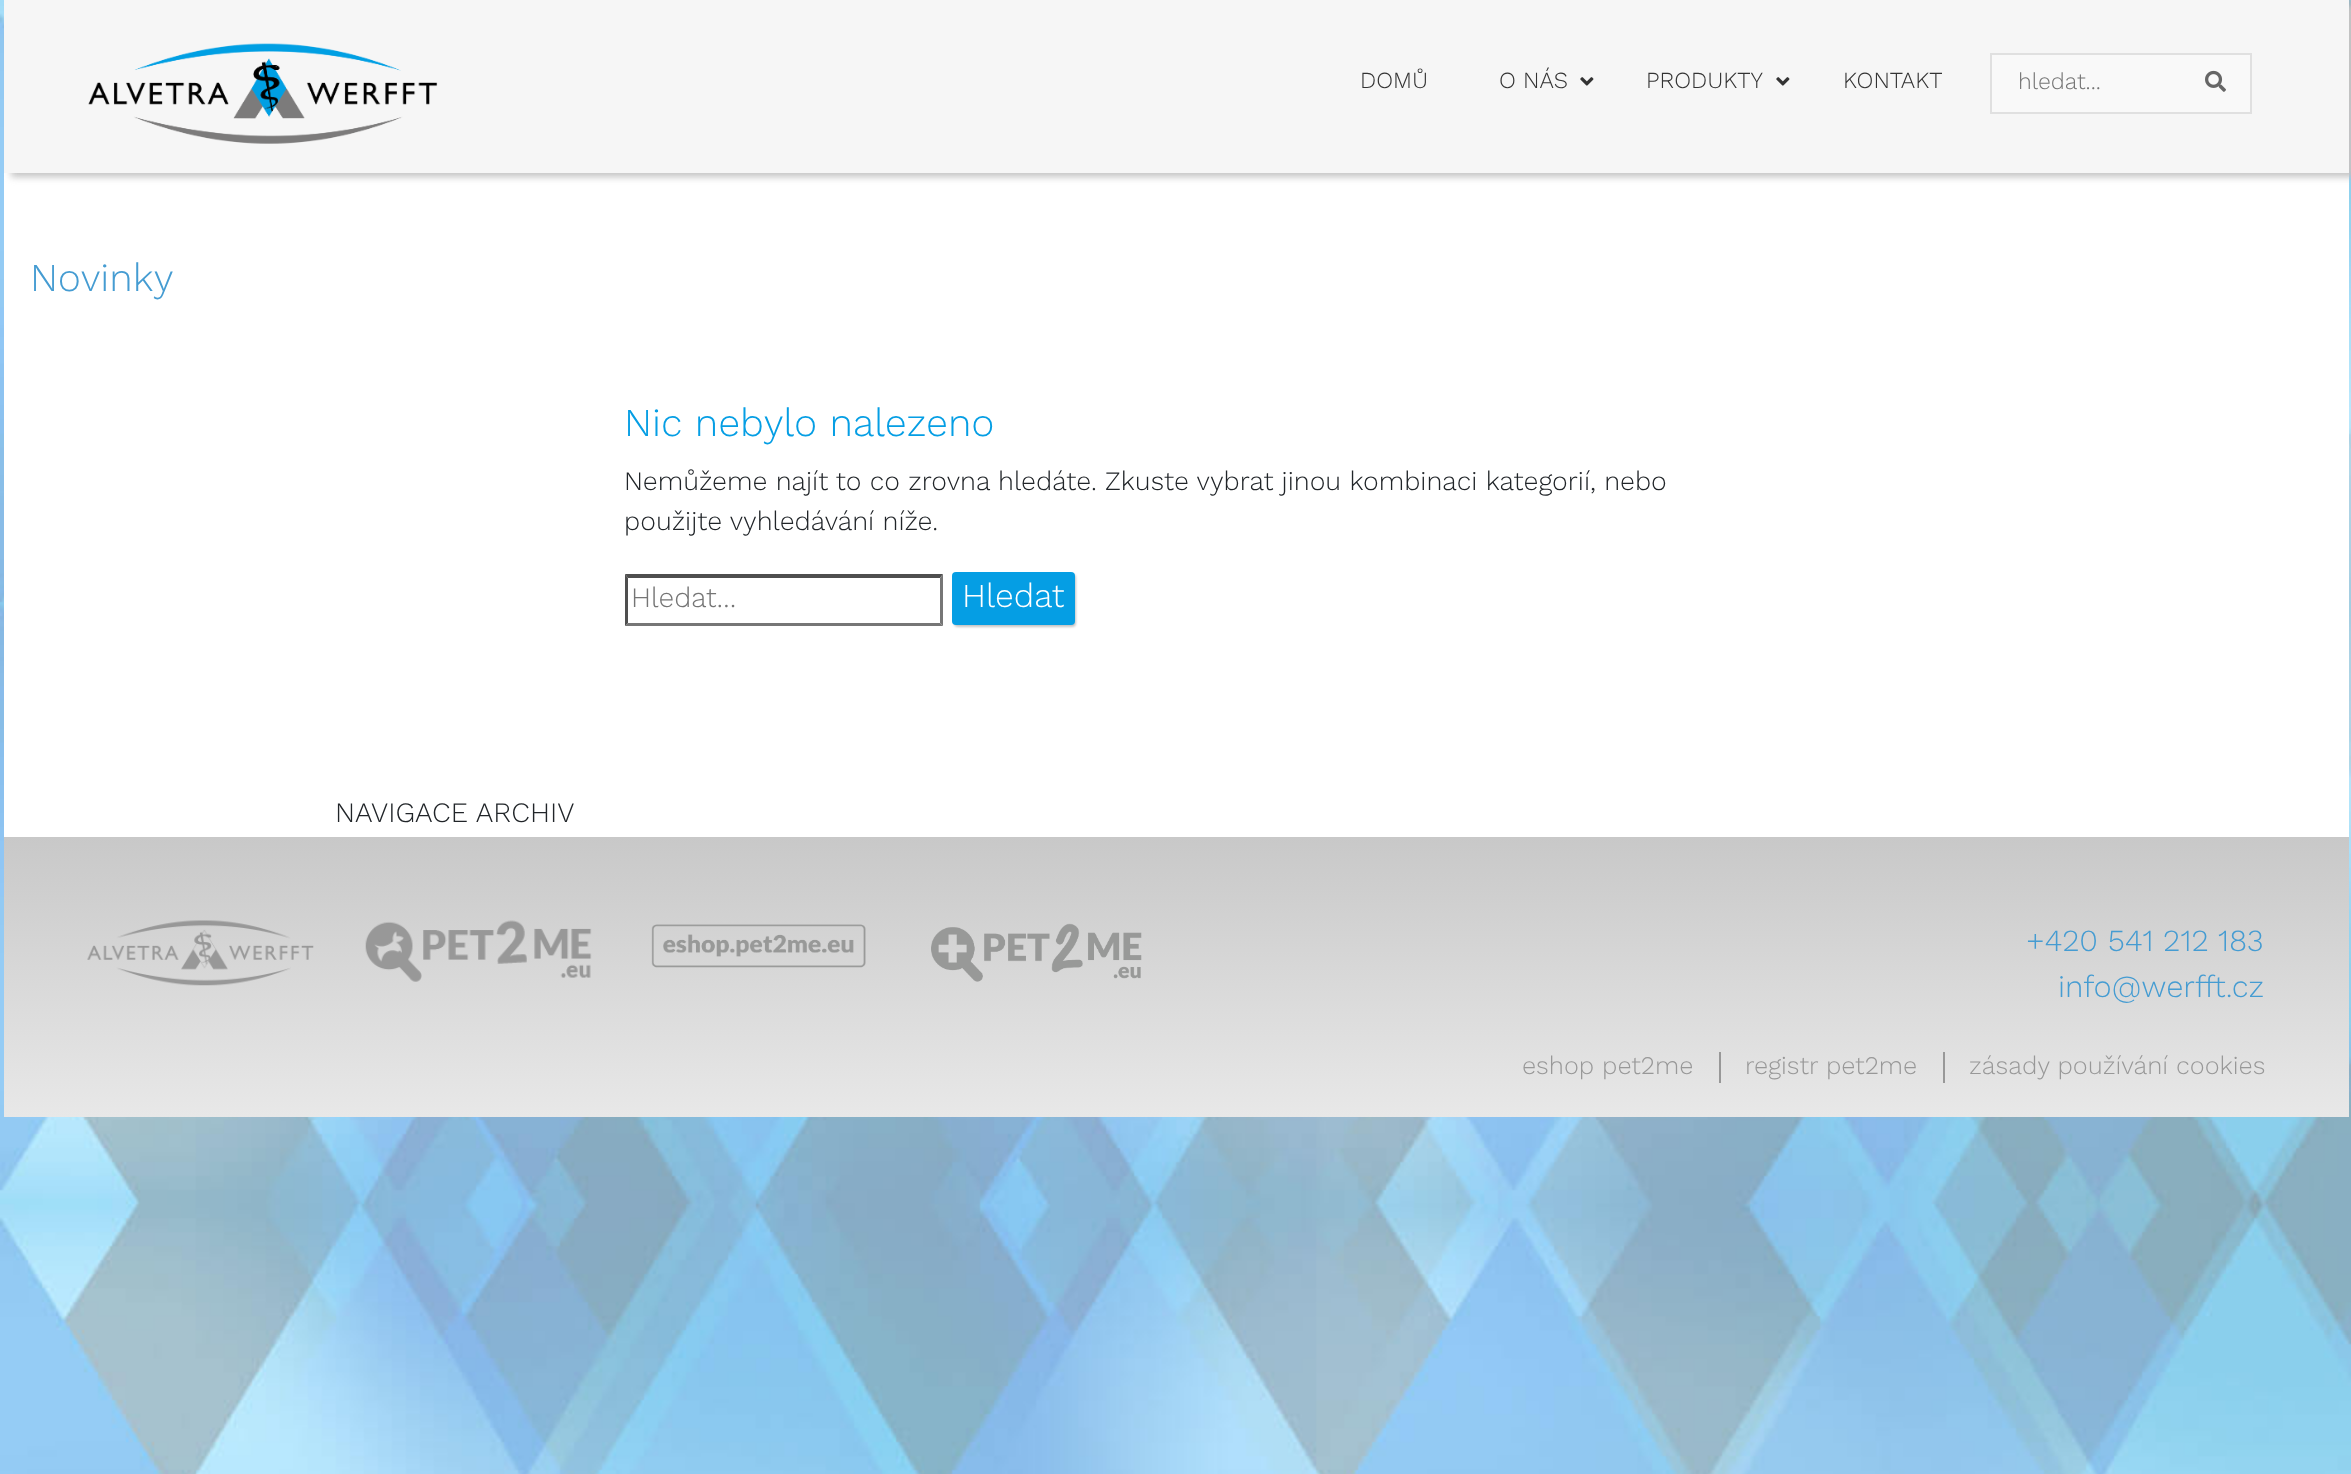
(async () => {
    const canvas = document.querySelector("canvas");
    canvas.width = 2351;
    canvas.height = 1474;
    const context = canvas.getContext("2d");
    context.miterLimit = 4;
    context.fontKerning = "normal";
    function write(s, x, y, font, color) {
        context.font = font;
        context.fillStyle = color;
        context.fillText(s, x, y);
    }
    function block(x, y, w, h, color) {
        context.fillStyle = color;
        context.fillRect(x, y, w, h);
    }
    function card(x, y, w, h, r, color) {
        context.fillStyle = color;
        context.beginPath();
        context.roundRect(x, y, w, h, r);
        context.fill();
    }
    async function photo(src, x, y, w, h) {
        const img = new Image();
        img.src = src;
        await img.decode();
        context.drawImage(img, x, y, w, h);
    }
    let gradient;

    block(0, 0, 2351, 1474, "rgb(255, 255, 255)");
    await photo("media/1.png", 0, 0, 2351, 1474);
    block(4, 173, 2345, 664, "rgb(255, 255, 255)");
    context.fillStyle = "rgb(196, 196, 196)";
    context.filter = "blur(3.5px)";
    context.beginPath();
    context.rect(11, 4, 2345, 173);
    context.fill();
    context.filter = "none";
    block(4, 0, 2345, 173, "rgb(246, 246, 246)");
    await photo("media/2.png", 88, 43, 350, 101);
    write("DOMŮ", 1360, 88, "300 23px Work Sans", "rgb(51, 51, 51)");
    write("O NÁS", 1499, 88, "300 23px Work Sans", "rgb(51, 51, 51)");
    await photo("media/3.png", 1580, 77, 14, 9);
    write("PRODUKTY", 1646, 88, "300 23px Work Sans", "rgb(51, 51, 51)");
    await photo("media/3.png", 1776, 77, 14, 9);
    write("KONTAKT", 1843, 88, "300 23px Work Sans", "rgb(51, 51, 51)");
    context.fillStyle = "rgb(249, 249, 249)";
    context.beginPath();
    context.rect(1991, 54, 260, 59);
    context.fill();
    context.strokeStyle = "rgb(224, 224, 224)";
    context.lineWidth = 2;
    context.stroke();
    write("hledat...", 2018, 89, "300 23px Work Sans", "rgb(117, 117, 117)");
    await photo("media/4.png", 2205, 70, 21, 22);
    write("Novinky", 30, 291, "300 39.25px Work Sans", "rgb(69, 156, 210)");
    write("Nic nebylo nalezeno", 624, 436, "300 39.25px Work Sans", "rgb(5, 158, 228)");
    write("Nemůžeme najít to co zrovna hledáte. Zkuste vybrat jinou kombinaci kategorií, nebo", 624, 490, "300 26.6px Work Sans", "rgb(33, 37, 41)");
    write("použijte vyhledávání níže.", 624, 530, "300 26.6px Work Sans", "rgb(33, 37, 41)");
    context.fillStyle = "rgb(79, 79, 79)";
    context.beginPath();
    context.moveTo(625, 574);
    context.lineTo(943, 574);
    context.lineTo(940, 578);
    context.lineTo(628, 578);
    context.closePath();
    context.fill();
    context.fillStyle = "rgb(118, 118, 118)";
    context.beginPath();
    context.moveTo(943, 574);
    context.lineTo(943, 626);
    context.lineTo(940, 623);
    context.lineTo(940, 578);
    context.closePath();
    context.fill();
    context.beginPath();
    context.moveTo(943, 626);
    context.lineTo(625, 626);
    context.lineTo(628, 623);
    context.lineTo(940, 623);
    context.closePath();
    context.fill();
    context.fillStyle = "rgb(79, 79, 79)";
    context.beginPath();
    context.moveTo(625, 626);
    context.lineTo(625, 574);
    context.lineTo(628, 578);
    context.lineTo(628, 623);
    context.closePath();
    context.fill();
    write("Hledat…", 631, 607, "300 28px Work Sans", "rgb(117, 117, 117)");
    context.fillStyle = "rgb(196, 196, 196)";
    context.filter = "blur(1px)";
    context.beginPath();
    context.roundRect(954, 574, 122, 53, 4);
    context.fill();
    context.filter = "none";
    card(952, 572, 123, 53, 4, "rgb(5, 158, 228)");
    write("Hledat", 962, 607, "300 33.5px Work Sans", "rgb(255, 255, 255)");
    write("NAVIGACE ARCHIV", 335, 822, "300 28px Work Sans", "rgb(33, 37, 41)");
    gradient = context.createLinearGradient(1176, 836, 1176, 1117);
    gradient.addColorStop(0, "rgb(200, 200, 200)");
    gradient.addColorStop(1, "rgb(232, 232, 232)");
    context.fillStyle = gradient;
    context.fillRect(4, 837, 2345, 280);
    await photo("media/5.png", 87, 920, 227, 66);
    await photo("media/6.png", 365, 920, 227, 62);
    await photo("media/7.png", 651, 924, 215, 44);
    await photo("media/8.png", 931, 923, 211, 59);
    write("+420 541 212 183", 2026, 951, "300 30.75px Work Sans", "rgb(69, 156, 210)");
    write("info@werfft.cz", 2058, 997, "300 30.75px Work Sans", "rgb(69, 156, 210)");
    write("eshop pet2me", 1522, 1074, "300 25.25px Work Sans", "rgb(152, 152, 152)");
    block(1719, 1052, 2, 31, "rgb(152, 152, 152)");
    write("registr pet2me", 1745, 1074, "300 25.25px Work Sans", "rgb(152, 152, 152)");
    block(1943, 1052, 2, 31, "rgb(152, 152, 152)");
    write("zásady používání cookies", 1969, 1074, "300 25.25px Work Sans", "rgb(152, 152, 152)");
})();
